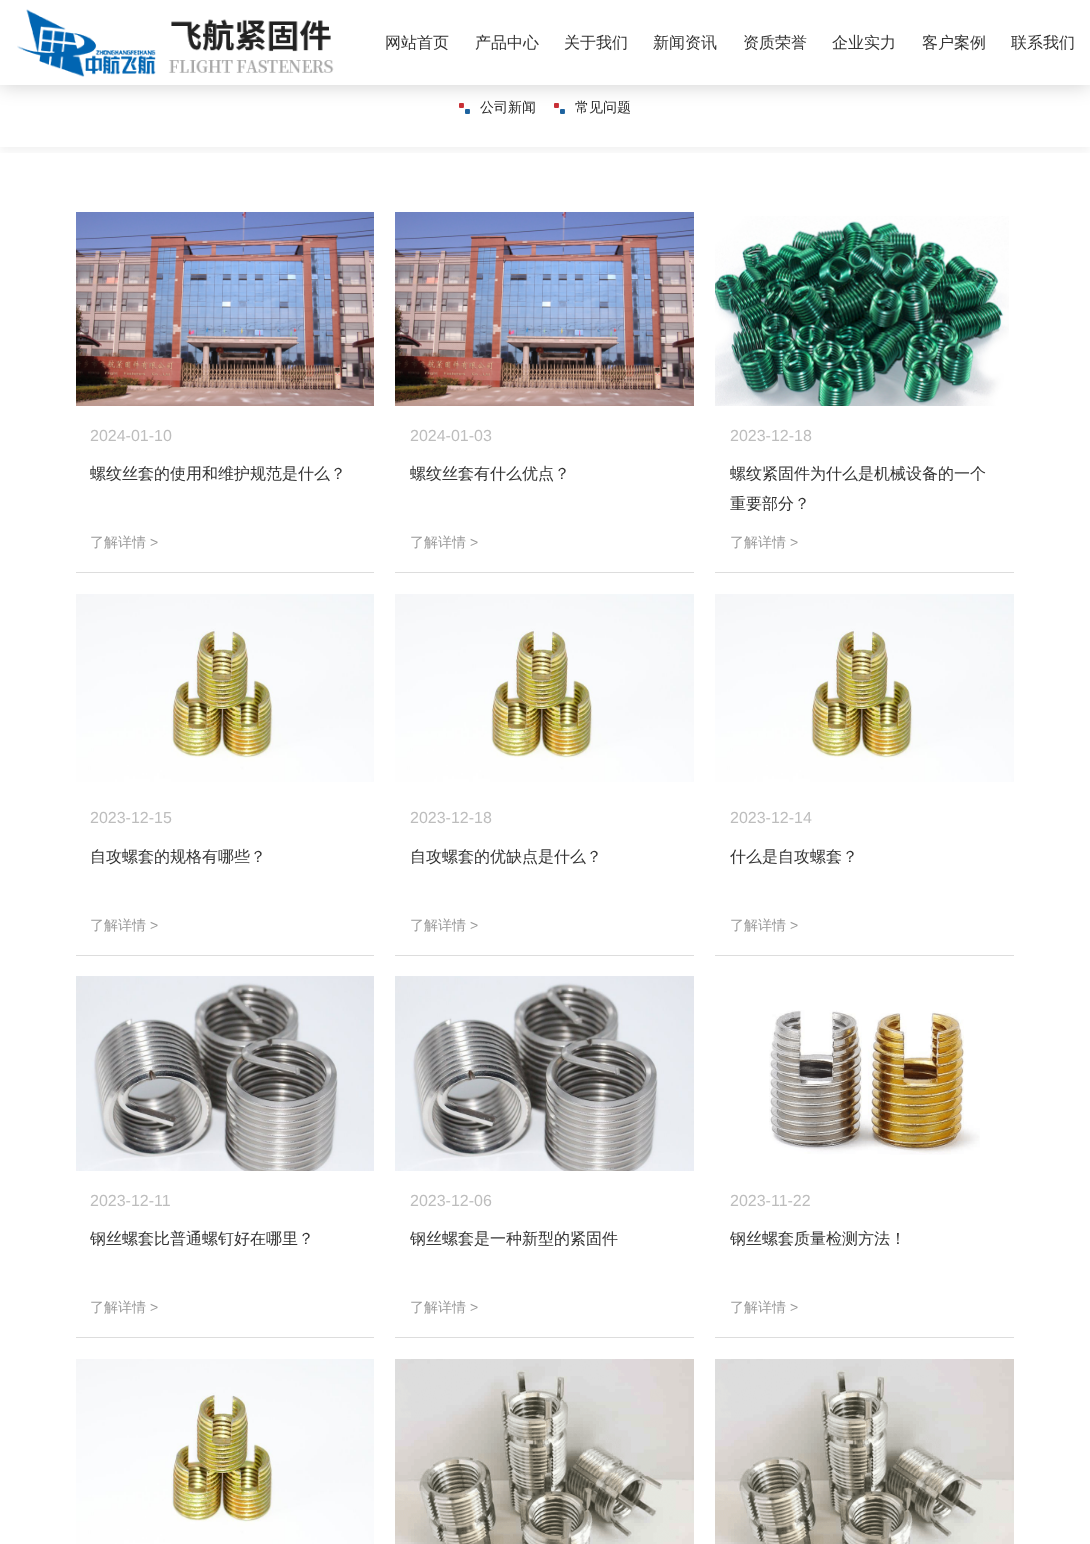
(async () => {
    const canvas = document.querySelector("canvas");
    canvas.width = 1090;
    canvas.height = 1544;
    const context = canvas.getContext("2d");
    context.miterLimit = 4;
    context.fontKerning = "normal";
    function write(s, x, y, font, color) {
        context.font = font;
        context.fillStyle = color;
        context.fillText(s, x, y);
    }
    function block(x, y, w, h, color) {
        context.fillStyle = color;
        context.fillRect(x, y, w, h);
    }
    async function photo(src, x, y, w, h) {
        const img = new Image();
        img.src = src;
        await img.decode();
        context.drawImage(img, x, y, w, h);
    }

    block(0, 0, 1090, 1544, "rgb(255, 255, 255)");
    context.save();
    context.beginPath();
    context.rect(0, 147, 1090, 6);
    context.clip();
    context.fillStyle = "rgba(0, 0, 0, 0.05)";
    context.filter = "blur(5px)";
    context.beginPath();
    context.rect(0, 72, 1090, 80);
    context.fill();
    context.filter = "none";
    context.restore();
    await photo("media/2.png", 459, 103, 11, 11);
    await photo("media/2.png", 554, 103, 11, 11);
    context.fillStyle = "rgba(0, 0, 0, 0.2)";
    context.filter = "blur(10px)";
    context.beginPath();
    context.rect(0, 0, 1090, 85);
    context.fill();
    context.filter = "none";
    block(0, 0, 1090, 85, "rgb(255, 255, 255)");
    await photo("media/1.png", 17, 9, 317, 68);
    write("网站首页", 385, 48, "500 16px WenQuanYi Zen Hei", "rgb(51, 51, 51)");
    write("产品中心", 475, 48, "500 16px WenQuanYi Zen Hei", "rgb(51, 51, 51)");
    write("关于我们", 564, 48, "500 16px WenQuanYi Zen Hei", "rgb(51, 51, 51)");
    write("新闻资讯", 653, 48, "500 16px WenQuanYi Zen Hei", "rgb(51, 51, 51)");
    write("资质荣誉", 743, 48, "500 16px WenQuanYi Zen Hei", "rgb(51, 51, 51)");
    write("企业实力", 832, 48, "500 16px WenQuanYi Zen Hei", "rgb(51, 51, 51)");
    write("客户案例", 922, 48, "500 16px WenQuanYi Zen Hei", "rgb(51, 51, 51)");
    write("联系我们", 1011, 48, "500 16px WenQuanYi Zen Hei", "rgb(51, 51, 51)");
    write("公司新闻", 480, 112, "500 14px WenQuanYi Zen Hei", "rgb(40, 40, 40)");
    write("常见问题", 575, 112, "500 14px WenQuanYi Zen Hei", "rgb(40, 40, 40)");
    block(76, 572, 298, 1, "rgb(221, 221, 221)");
    await photo("media/3.png", 76, 212, 298, 194);
    write("2024-01-10", 90, 441, "16px Liberation Sans", "rgb(189, 189, 189)");
    write("螺纹丝套的使用和维护规范是什么？", 90, 479, "500 16px WenQuanYi Zen Hei", "rgb(51, 51, 51)");
    write("了解详情", 90, 547, "500 14px WenQuanYi Zen Hei", "rgb(154, 154, 154)");
    write(">", 150, 547, "14px Liberation Sans", "rgb(154, 154, 154)");
    block(395, 572, 299, 1, "rgb(221, 221, 221)");
    await photo("media/4.png", 395, 212, 299, 194);
    write("2024-01-03", 410, 441, "16px Liberation Sans", "rgb(189, 189, 189)");
    write("螺纹丝套有什么优点？", 410, 479, "500 16px WenQuanYi Zen Hei", "rgb(51, 51, 51)");
    write("了解详情", 410, 547, "500 14px WenQuanYi Zen Hei", "rgb(154, 154, 154)");
    write(">", 470, 547, "14px Liberation Sans", "rgb(154, 154, 154)");
    block(715, 572, 299, 1, "rgb(221, 221, 221)");
    await photo("media/5.png", 715, 216, 294, 190);
    write("2023-12-18", 730, 441, "16px Liberation Sans", "rgb(189, 189, 189)");
    write("螺纹紧固件为什么是机械设备的一个", 730, 479, "500 16px WenQuanYi Zen Hei", "rgb(51, 51, 51)");
    write("重要部分？", 730, 509, "500 16px WenQuanYi Zen Hei", "rgb(51, 51, 51)");
    write("了解详情", 730, 547, "500 14px WenQuanYi Zen Hei", "rgb(154, 154, 154)");
    write(">", 790, 547, "14px Liberation Sans", "rgb(154, 154, 154)");
    block(76, 955, 298, 1, "rgb(221, 221, 221)");
    await photo("media/6.png", 76, 594, 298, 188);
    write("2023-12-15", 90, 823, "16px Liberation Sans", "rgb(189, 189, 189)");
    write("自攻螺套的规格有哪些？", 90, 862, "500 16px WenQuanYi Zen Hei", "rgb(51, 51, 51)");
    write("了解详情", 90, 930, "500 14px WenQuanYi Zen Hei", "rgb(154, 154, 154)");
    write(">", 150, 930, "14px Liberation Sans", "rgb(154, 154, 154)");
    block(395, 955, 299, 1, "rgb(221, 221, 221)");
    await photo("media/7.png", 395, 594, 299, 188);
    write("2023-12-18", 410, 823, "16px Liberation Sans", "rgb(189, 189, 189)");
    write("自攻螺套的优缺点是什么？", 410, 862, "500 16px WenQuanYi Zen Hei", "rgb(51, 51, 51)");
    write("了解详情", 410, 930, "500 14px WenQuanYi Zen Hei", "rgb(154, 154, 154)");
    write(">", 470, 930, "14px Liberation Sans", "rgb(154, 154, 154)");
    block(715, 955, 299, 1, "rgb(221, 221, 221)");
    await photo("media/7.png", 715, 594, 299, 188);
    write("2023-12-14", 730, 823, "16px Liberation Sans", "rgb(189, 189, 189)");
    write("什么是自攻螺套？", 730, 862, "500 16px WenQuanYi Zen Hei", "rgb(51, 51, 51)");
    write("了解详情", 730, 930, "500 14px WenQuanYi Zen Hei", "rgb(154, 154, 154)");
    write(">", 790, 930, "14px Liberation Sans", "rgb(154, 154, 154)");
    block(76, 1337, 298, 1, "rgb(221, 221, 221)");
    await photo("media/8.png", 76, 976, 298, 195);
    write("2023-12-11", 90, 1206, "16px Liberation Sans", "rgb(189, 189, 189)");
    write("钢丝螺套比普通螺钉好在哪里？", 90, 1244, "500 16px WenQuanYi Zen Hei", "rgb(51, 51, 51)");
    write("了解详情", 90, 1312, "500 14px WenQuanYi Zen Hei", "rgb(154, 154, 154)");
    write(">", 150, 1312, "14px Liberation Sans", "rgb(154, 154, 154)");
    block(395, 1337, 299, 1, "rgb(221, 221, 221)");
    await photo("media/9.png", 395, 976, 299, 195);
    write("2023-12-06", 410, 1206, "16px Liberation Sans", "rgb(189, 189, 189)");
    write("钢丝螺套是一种新型的紧固件", 410, 1244, "500 16px WenQuanYi Zen Hei", "rgb(51, 51, 51)");
    write("了解详情", 410, 1312, "500 14px WenQuanYi Zen Hei", "rgb(154, 154, 154)");
    write(">", 470, 1312, "14px Liberation Sans", "rgb(154, 154, 154)");
    block(715, 1337, 299, 1, "rgb(221, 221, 221)");
    await photo("media/10.png", 769, 1010, 211, 145);
    write("2023-11-22", 730, 1206, "16px Liberation Sans", "rgb(189, 189, 189)");
    write("钢丝螺套质量检测方法！", 730, 1244, "500 16px WenQuanYi Zen Hei", "rgb(51, 51, 51)");
    write("了解详情", 730, 1312, "500 14px WenQuanYi Zen Hei", "rgb(154, 154, 154)");
    write(">", 790, 1312, "14px Liberation Sans", "rgb(154, 154, 154)");
    await photo("media/11.png", 76, 1359, 298, 185);
    await photo("media/12.png", 395, 1359, 299, 185);
    await photo("media/12.png", 715, 1359, 299, 185);
})();
